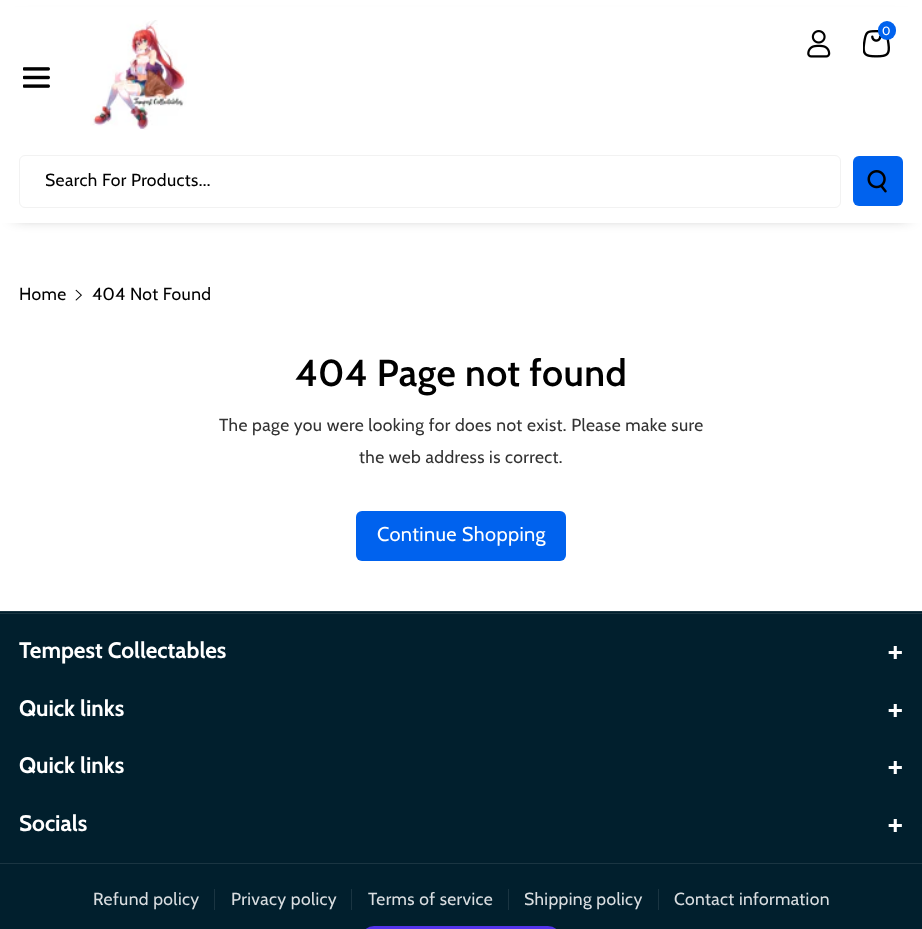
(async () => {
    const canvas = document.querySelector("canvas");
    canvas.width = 922;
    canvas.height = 929;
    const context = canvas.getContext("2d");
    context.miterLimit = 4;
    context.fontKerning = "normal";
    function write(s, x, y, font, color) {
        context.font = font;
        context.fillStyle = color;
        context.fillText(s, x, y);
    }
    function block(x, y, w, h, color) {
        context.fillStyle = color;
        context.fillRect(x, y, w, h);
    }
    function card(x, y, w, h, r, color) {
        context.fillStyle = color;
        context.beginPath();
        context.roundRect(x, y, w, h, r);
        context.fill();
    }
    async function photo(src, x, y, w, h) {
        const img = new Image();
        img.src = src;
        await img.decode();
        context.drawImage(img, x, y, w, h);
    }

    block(0, 0, 922, 929, "rgb(255, 255, 255)");
    context.fillStyle = "rgba(18, 18, 18, 0.6)";
    context.filter = "blur(7.5px)";
    context.beginPath();
    context.rect(15, 23, 893, 192);
    context.fill();
    context.filter = "none";
    block(0, 7, 922, 216, "rgb(255, 255, 255)");
    await photo("media/1.png", 90, 20, 97, 110);
    await photo("media/2.png", 807, 30, 24, 28);
    await photo("media/3.png", 863, 30, 27, 28);
    card(878, 21, 18, 19, 9, "rgb(0, 98, 238)");
    context.letterSpacing = "0.38px";
    write("0", 882, 35, "12px Cabin", "rgb(255, 255, 255)");
    await photo("media/4.png", 23, 67, 27, 21);
    context.beginPath();
    context.roundRect(19.5, 155.5, 821, 52, 5.5);
    context.strokeStyle = "rgb(242, 242, 242)";
    context.stroke();
    write("Search For Products...", 45, 186, "17.5px Cabin", "rgb(0, 0, 0)");
    card(853, 156, 50, 50, 6, "rgb(0, 98, 238)");
    await photo("media/5.png", 867, 170, 20, 23);
    write("Home", 19, 300, "17.5px Cabin", "rgb(0, 0, 0)");
    await photo("media/6.png", 75, 289, 7, 12);
    write("404 Not Found", 92, 300, "17.5px Cabin", "rgb(0, 0, 0)");
    write("404 Page not found", 295, 386, "600 37.5px Cabin", "rgb(0, 0, 0)");
    write("The page you were looking for does not exist. Please make sure", 219, 431, "17.5px Cabin", "rgb(51, 51, 51)");
    write("the web address is correct.", 359, 463, "17.5px Cabin", "rgb(51, 51, 51)");
    card(356, 511, 210, 50, 6, "rgb(0, 98, 238)");
    write("Continue Shopping", 377, 541, "20px Cabin", "rgb(255, 255, 255)");
    block(0, 612, 922, 317, "rgb(1, 31, 45)");
    block(0, 611, 922, 1, "rgb(26, 53, 66)");
    block(0, 613, 922, 1, "rgb(26, 53, 66)");
    context.letterSpacing = "0px";
    write("Tempest Collectables", 19, 658, "bold 22.5px Cabin", "rgb(255, 255, 255)");
    write("+", 887, 663, "37.5px Cabin", "rgb(255, 255, 255)");
    write("Quick links", 19, 716, "bold 22.5px Cabin", "rgb(255, 255, 255)");
    write("+", 887, 721, "37.5px Cabin", "rgb(255, 255, 255)");
    write("Quick links", 19, 773, "bold 22.5px Cabin", "rgb(255, 255, 255)");
    write("+", 887, 778, "37.5px Cabin", "rgb(255, 255, 255)");
    write("Socials", 19, 831, "bold 22.5px Cabin", "rgb(255, 255, 255)");
    write("+", 887, 836, "37.5px Cabin", "rgb(255, 255, 255)");
    block(0, 863, 922, 1, "rgb(26, 53, 66)");
    context.letterSpacing = "0.38px";
    write("Refund policy", 93, 905, "17.5px Cabin", "rgb(217, 221, 224)");
    block(214, 889, 1, 21, "rgb(26, 53, 66)");
    write("Privacy policy", 231, 905, "17.5px Cabin", "rgb(217, 221, 224)");
    block(351, 889, 1, 21, "rgb(26, 53, 66)");
    write("Terms of service", 368, 905, "17.5px Cabin", "rgb(217, 221, 224)");
    block(508, 889, 1, 21, "rgb(26, 53, 66)");
    write("Shipping policy", 524, 905, "17.5px Cabin", "rgb(217, 221, 224)");
    block(658, 889, 1, 21, "rgb(26, 53, 66)");
    write("Contact information", 674, 905, "17.5px Cabin", "rgb(217, 221, 224)");
    card(361, 926, 200, 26, 22.5, "rgb(84, 51, 235)");
})();
